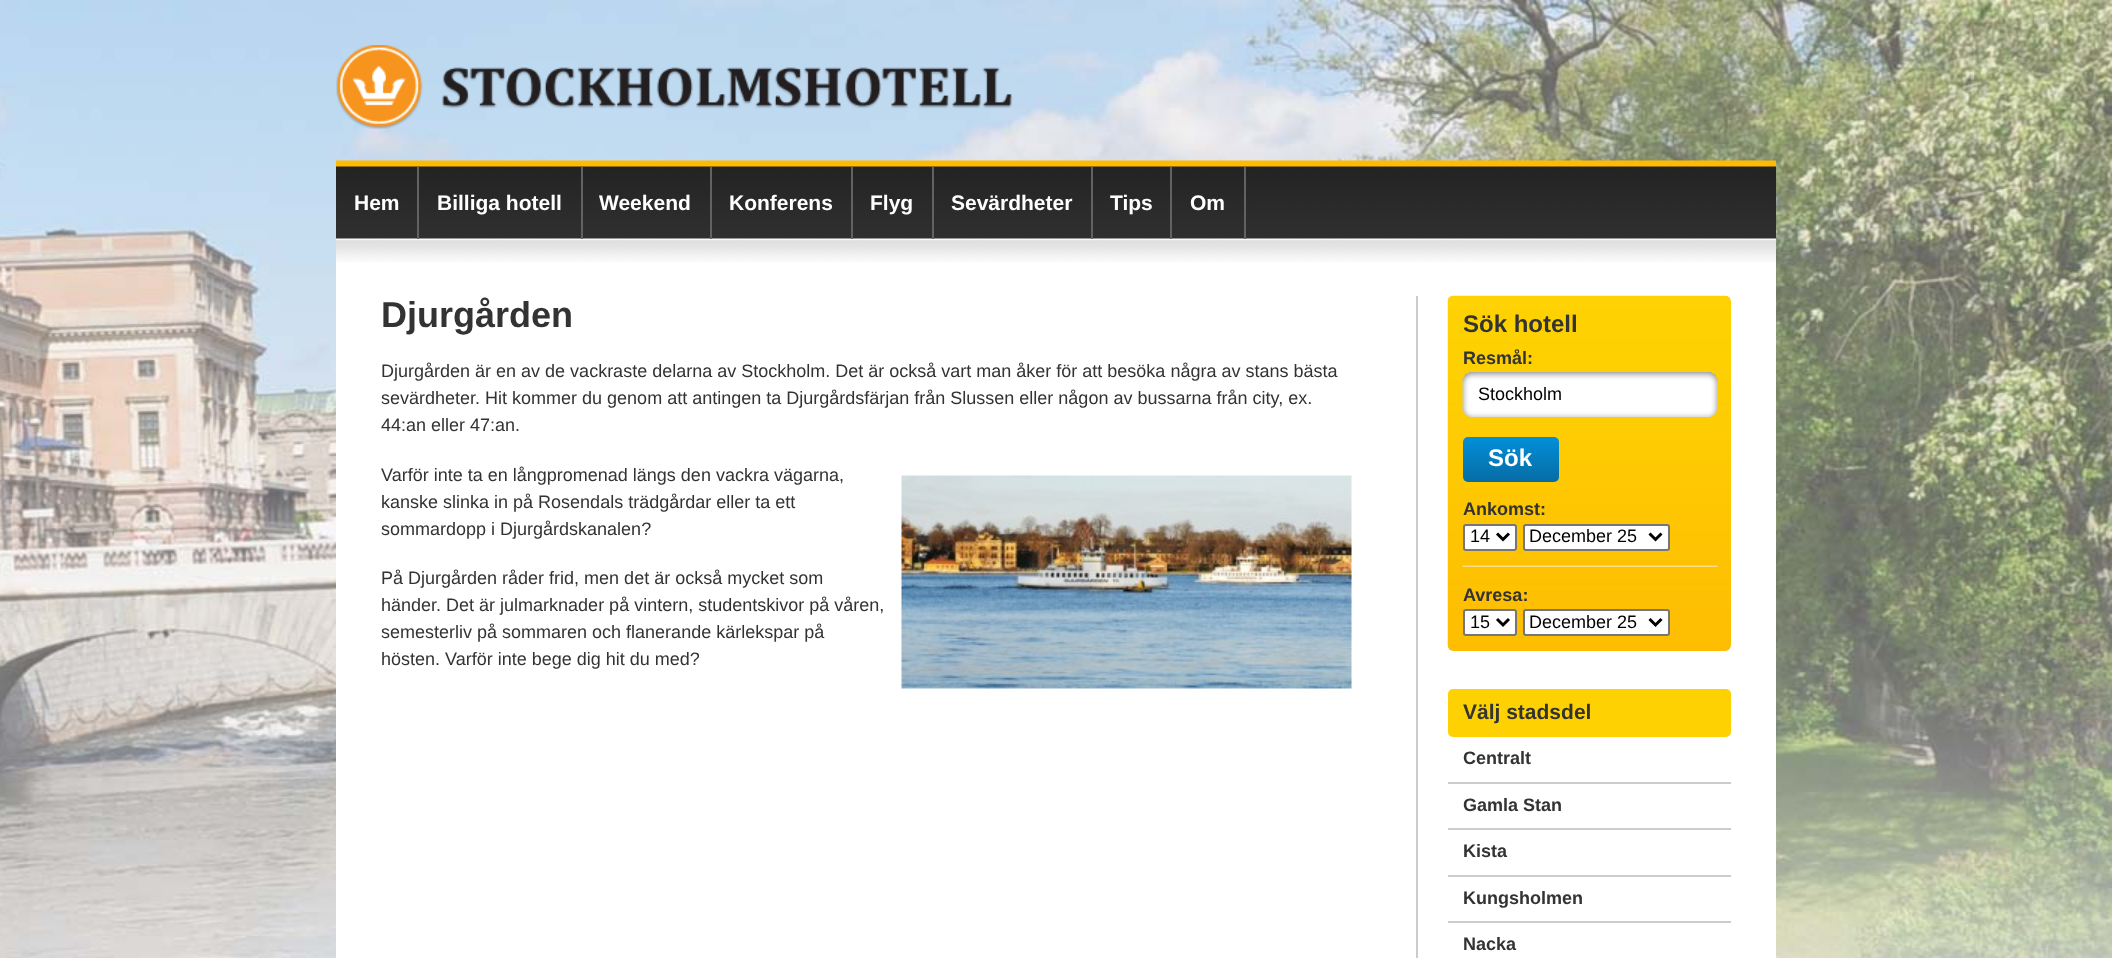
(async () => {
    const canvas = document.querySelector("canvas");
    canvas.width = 2112;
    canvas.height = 958;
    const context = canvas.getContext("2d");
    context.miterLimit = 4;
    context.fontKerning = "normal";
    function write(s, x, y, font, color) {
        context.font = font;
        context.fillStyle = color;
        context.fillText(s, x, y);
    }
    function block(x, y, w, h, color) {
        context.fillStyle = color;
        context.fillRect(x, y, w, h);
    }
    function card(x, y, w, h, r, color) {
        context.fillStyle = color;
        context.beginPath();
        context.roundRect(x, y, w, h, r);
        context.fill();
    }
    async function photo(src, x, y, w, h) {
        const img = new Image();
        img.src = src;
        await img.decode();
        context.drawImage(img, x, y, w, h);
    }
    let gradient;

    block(0, 0, 2112, 958, "rgb(255, 255, 255)");
    await photo("media/1.png", 0, 0, 2112, 958);
    await photo("media/2.png", 336, 45, 677, 84);
    block(336, 262, 1440, 696, "rgb(255, 255, 255)");
    await photo("media/3.png", 336, 160, 1440, 102);
    block(417, 167, 2, 72, "rgb(98, 98, 98)");
    write("Hem", 354, 210, "bold 21px Liberation Sans", "rgb(255, 255, 255)");
    block(581, 167, 2, 72, "rgb(98, 98, 98)");
    write("Billiga hotell", 437, 210, "bold 21px Liberation Sans", "rgb(255, 255, 255)");
    block(710, 167, 2, 72, "rgb(98, 98, 98)");
    write("Weekend", 599, 210, "bold 21px Liberation Sans", "rgb(255, 255, 255)");
    block(851, 167, 2, 72, "rgb(98, 98, 98)");
    write("Konferens", 729, 210, "bold 21px Liberation Sans", "rgb(255, 255, 255)");
    block(932, 167, 2, 72, "rgb(98, 98, 98)");
    write("Flyg", 870, 210, "bold 21px Liberation Sans", "rgb(255, 255, 255)");
    block(1091, 167, 2, 72, "rgb(98, 98, 98)");
    write("Sevärdheter", 951, 210, "bold 21px Liberation Sans", "rgb(255, 255, 255)");
    block(1170, 167, 2, 72, "rgb(98, 98, 98)");
    write("Tips", 1110, 210, "bold 21px Liberation Sans", "rgb(255, 255, 255)");
    block(1244, 167, 2, 72, "rgb(98, 98, 98)");
    write("Om", 1190, 210, "bold 21px Liberation Sans", "rgb(255, 255, 255)");
    write("Djurgården", 381, 327, "bold 36px Liberation Sans", "rgb(51, 51, 51)");
    write("Djurgården är en av de vackraste delarna av Stockholm. Det är också vart man åker för att besöka några av stans bästa", 381, 377, "18px Liberation Sans", "rgb(51, 51, 51)");
    write("sevärdheter. Hit kommer du genom att antingen ta Djurgårdsfärjan från Slussen eller någon av bussarna från city, ex.", 381, 404, "18px Liberation Sans", "rgb(51, 51, 51)");
    write("44:an eller 47:an.", 381, 431, "18px Liberation Sans", "rgb(51, 51, 51)");
    write("Varför inte ta en långpromenad längs den vackra vägarna,", 381, 481, "18px Liberation Sans", "rgb(51, 51, 51)");
    write("kanske slinka in på Rosendals trädgårdar eller ta ett", 381, 508, "18px Liberation Sans", "rgb(51, 51, 51)");
    write("sommardopp i Djurgårdskanalen?", 381, 535, "18px Liberation Sans", "rgb(51, 51, 51)");
    await photo("media/4.png", 901, 475, 451, 214);
    write("På Djurgården råder frid, men det är också mycket som", 381, 584, "18px Liberation Sans", "rgb(51, 51, 51)");
    write("händer. Det är julmarknader på vintern, studentskivor på våren,", 381, 611, "18px Liberation Sans", "rgb(51, 51, 51)");
    write("semesterliv på sommaren och flanerande kärlekspar på", 381, 638, "18px Liberation Sans", "rgb(51, 51, 51)");
    write("hösten. Varför inte bege dig hit du med?", 381, 665, "18px Liberation Sans", "rgb(51, 51, 51)");
    block(1416, 296, 2, 662, "rgb(204, 204, 204)");
    await photo("media/5.png", 1447, 295, 284, 356);
    write("Sök hotell", 1463, 332, "bold 24px Liberation Sans", "rgb(51, 51, 51)");
    write("Resmål:", 1463, 364, "bold 18px Liberation Sans", "rgb(51, 51, 51)");
    await photo("media/6.png", 1462, 372, 256, 45);
    write("Stockholm", 1478, 400, "18px Liberation Sans", "rgb(0, 0, 0)");
    gradient = context.createLinearGradient(1511, 437, 1511, 482);
    gradient.addColorStop(0, "rgb(2, 143, 217)");
    gradient.addColorStop(1, "rgb(7, 108, 164)");
    context.fillStyle = gradient;
    context.beginPath();
    context.roundRect(1463, 437, 96, 45, 5);
    context.fill();
    write("Sök", 1488, 466, "bold 24px Liberation Sans", "rgb(255, 255, 255)");
    await photo("media/7.png", 1462, 565, 256, 2);
    write("Ankomst:", 1463, 515, "bold 18px Liberation Sans", "rgb(51, 51, 51)");
    context.fillStyle = "rgb(255, 255, 255)";
    context.beginPath();
    context.roundRect(1464, 525, 52, 25, 2);
    context.fill();
    context.strokeStyle = "rgb(118, 118, 118)";
    context.lineWidth = 2;
    context.stroke();
    context.beginPath();
    context.moveTo(1497, 533.5);
    context.lineTo(1503, 539.5);
    context.lineTo(1509, 533.5);
    context.strokeStyle = "rgb(0, 0, 0)";
    context.lineWidth = 3;
    context.stroke();
    write("14", 1470, 542, "18px Liberation Sans", "rgb(0, 0, 0)");
    context.fillStyle = "rgb(255, 255, 255)";
    context.beginPath();
    context.roundRect(1524, 525, 145, 25, 2);
    context.fill();
    context.strokeStyle = "rgb(118, 118, 118)";
    context.lineWidth = 2;
    context.stroke();
    context.beginPath();
    context.moveTo(1649.5, 533.5);
    context.lineTo(1655.5, 539.5);
    context.lineTo(1661.5, 533.5);
    context.strokeStyle = "rgb(0, 0, 0)";
    context.lineWidth = 3;
    context.stroke();
    write("December 25", 1529, 542, "18px Liberation Sans", "rgb(0, 0, 0)");
    write("Avresa:", 1463, 601, "bold 18px Liberation Sans", "rgb(51, 51, 51)");
    context.fillStyle = "rgb(255, 255, 255)";
    context.beginPath();
    context.roundRect(1464, 610, 52, 25, 2);
    context.fill();
    context.strokeStyle = "rgb(118, 118, 118)";
    context.lineWidth = 2;
    context.stroke();
    context.beginPath();
    context.moveTo(1497, 619);
    context.lineTo(1503, 625);
    context.lineTo(1509, 619);
    context.strokeStyle = "rgb(0, 0, 0)";
    context.lineWidth = 3;
    context.stroke();
    write("15", 1470, 628, "18px Liberation Sans", "rgb(0, 0, 0)");
    context.fillStyle = "rgb(255, 255, 255)";
    context.beginPath();
    context.roundRect(1524, 610, 145, 25, 2);
    context.fill();
    context.strokeStyle = "rgb(118, 118, 118)";
    context.lineWidth = 2;
    context.stroke();
    context.beginPath();
    context.moveTo(1649.5, 619);
    context.lineTo(1655.5, 625);
    context.lineTo(1661.5, 619);
    context.strokeStyle = "rgb(0, 0, 0)";
    context.lineWidth = 3;
    context.stroke();
    write("December 25", 1529, 628, "18px Liberation Sans", "rgb(0, 0, 0)");
    card(1448, 689, 283, 48, 5, "rgb(254, 210, 2)");
    write("Välj stadsdel", 1463, 719, "bold 21px Liberation Sans", "rgb(51, 51, 51)");
    block(1448, 782, 283, 2, "rgb(204, 204, 204)");
    write("Centralt", 1463, 764, "bold 18px Liberation Sans", "rgb(51, 51, 51)");
    block(1448, 828, 283, 2, "rgb(204, 204, 204)");
    write("Gamla Stan", 1463, 811, "bold 18px Liberation Sans", "rgb(51, 51, 51)");
    block(1448, 875, 283, 2, "rgb(204, 204, 204)");
    write("Kista", 1463, 857, "bold 18px Liberation Sans", "rgb(51, 51, 51)");
    block(1448, 921, 283, 2, "rgb(204, 204, 204)");
    write("Kungsholmen", 1463, 904, "bold 18px Liberation Sans", "rgb(51, 51, 51)");
    write("Nacka", 1463, 950, "bold 18px Liberation Sans", "rgb(51, 51, 51)");
})();
